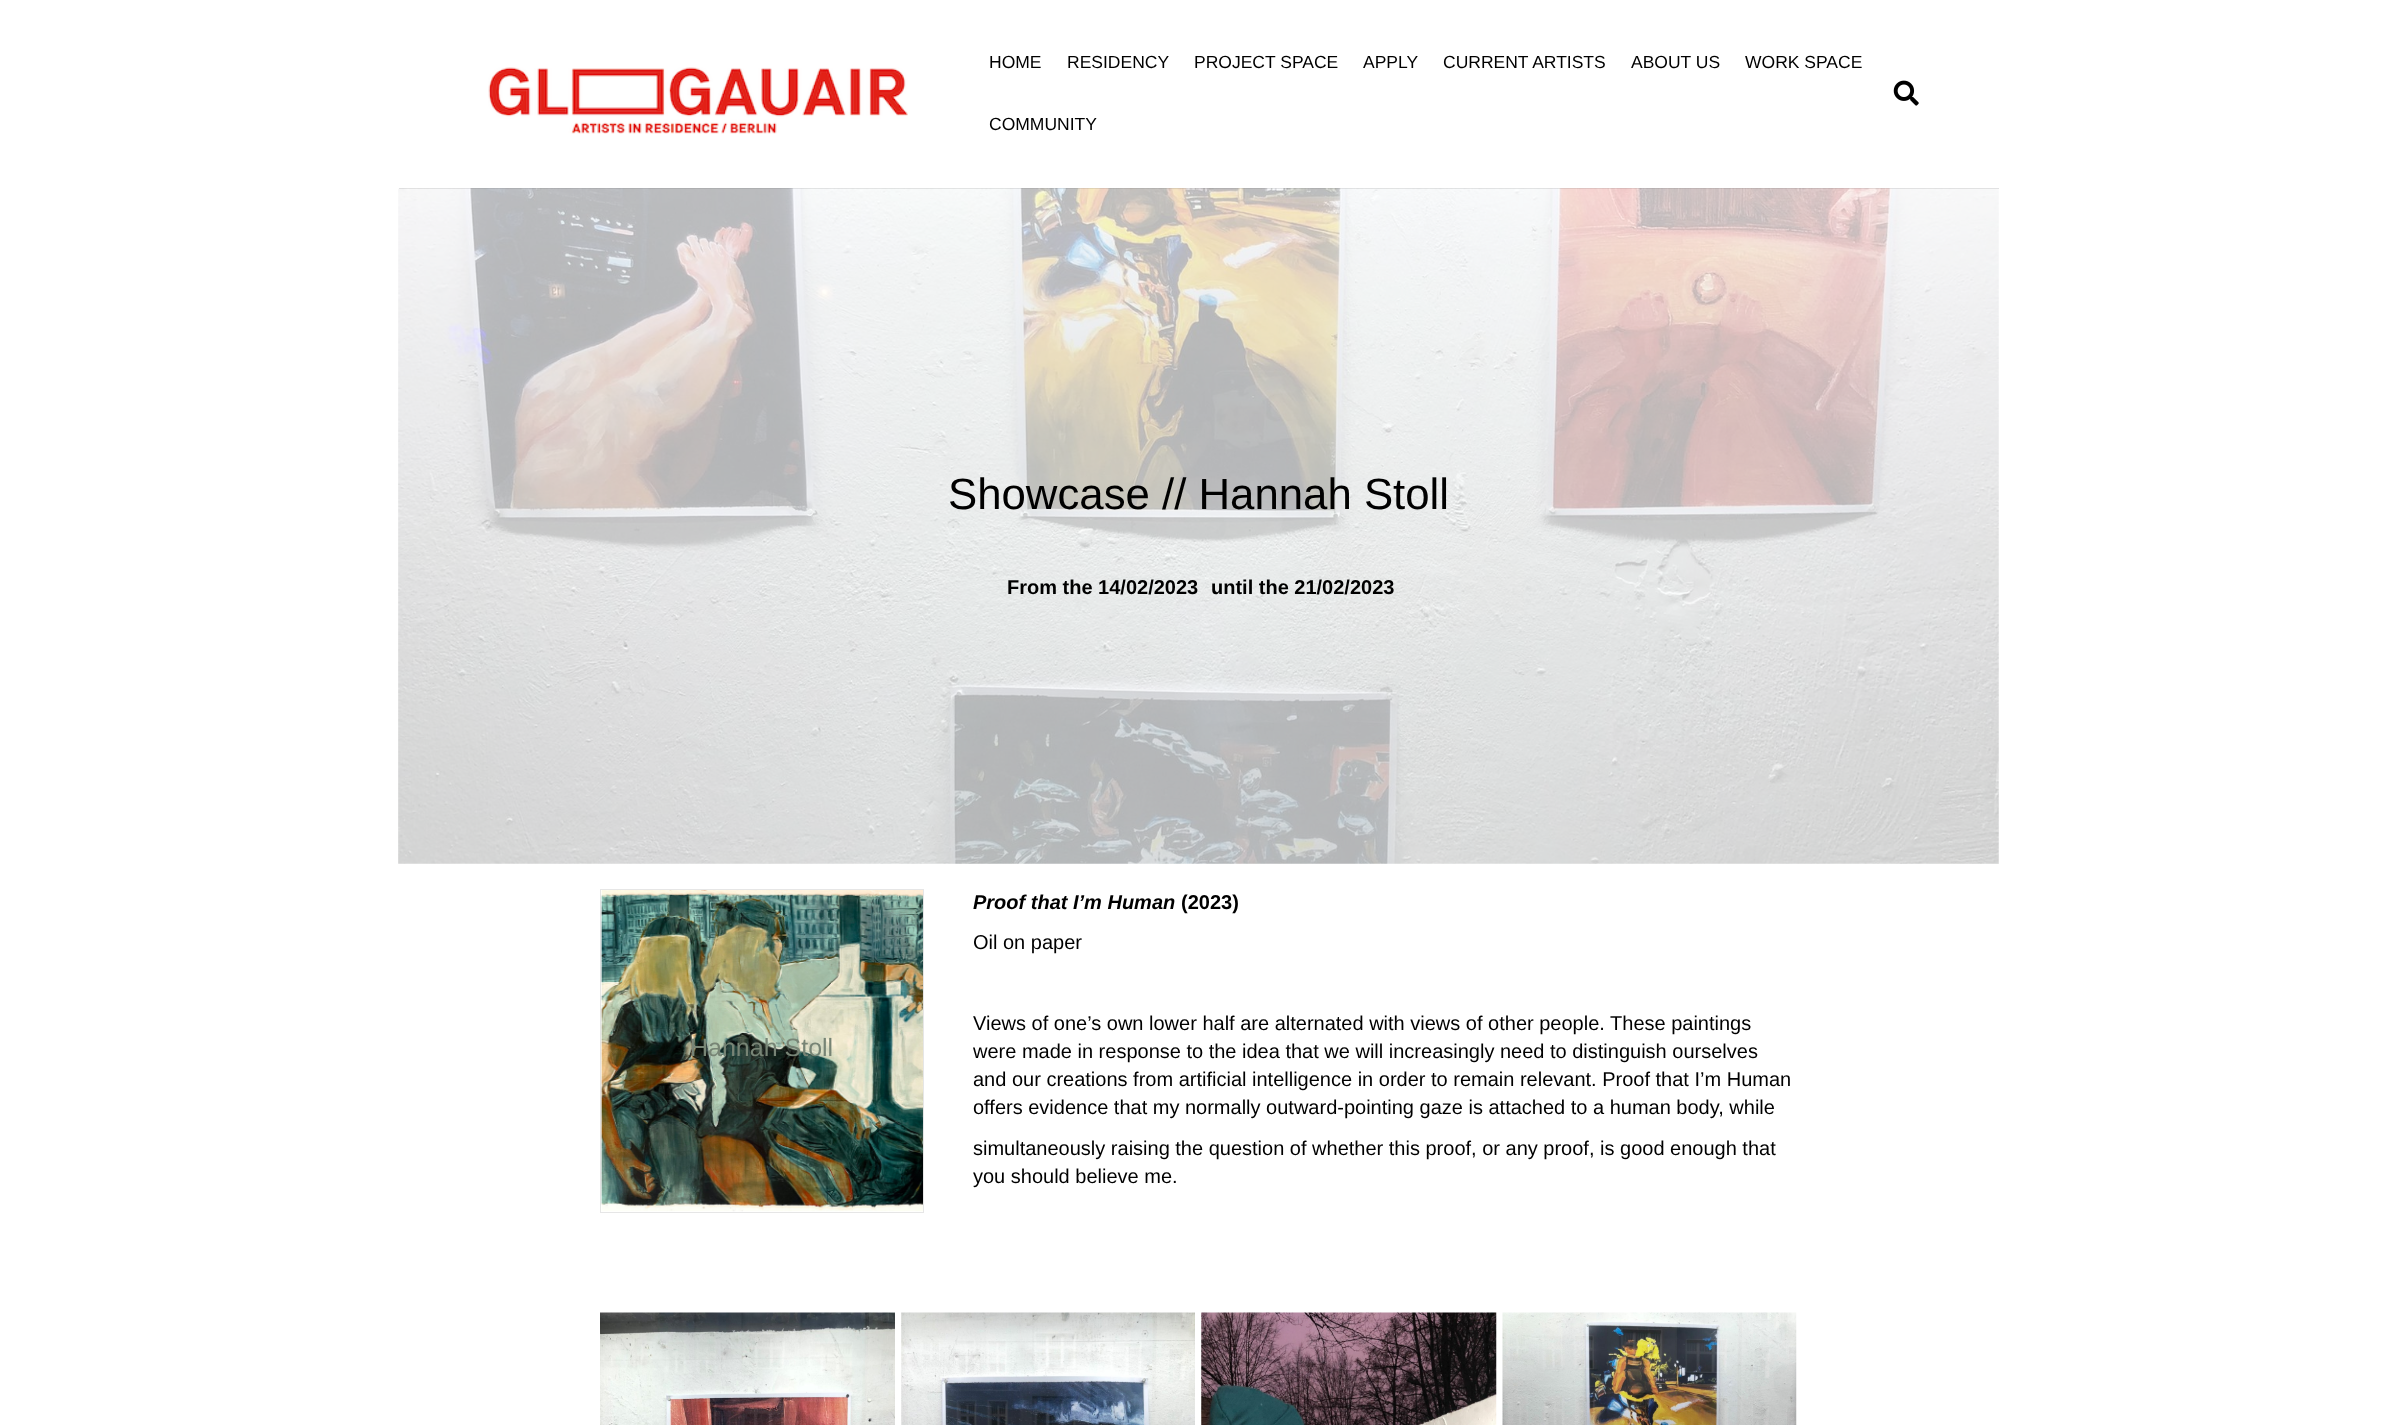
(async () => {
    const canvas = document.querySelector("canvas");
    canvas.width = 2396;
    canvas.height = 1425;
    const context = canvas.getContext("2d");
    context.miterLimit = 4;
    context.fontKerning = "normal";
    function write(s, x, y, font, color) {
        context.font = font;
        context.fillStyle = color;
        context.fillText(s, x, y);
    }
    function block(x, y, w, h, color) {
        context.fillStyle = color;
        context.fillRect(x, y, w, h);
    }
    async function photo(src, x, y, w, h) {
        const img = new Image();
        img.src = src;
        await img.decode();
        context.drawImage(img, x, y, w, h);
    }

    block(0, 0, 2396, 1425, "rgb(255, 255, 255)");
    block(399, 188, 1600, 1, "rgb(223, 223, 223)");
    await photo("media/1.png", 488, 67, 420, 67);
    write("HOME", 989, 68, "17.5px Liberation Sans", "rgb(0, 0, 0)");
    write("RESIDENCY", 1067, 68, "17.5px Liberation Sans", "rgb(0, 0, 0)");
    write("PROJECT SPACE", 1194, 68, "17.5px Liberation Sans", "rgb(0, 0, 0)");
    write("APPLY", 1363, 68, "17.5px Liberation Sans", "rgb(0, 0, 0)");
    write("CURRENT ARTISTS", 1443, 68, "17.5px Liberation Sans", "rgb(0, 0, 0)");
    write("ABOUT US", 1631, 68, "17.5px Liberation Sans", "rgb(0, 0, 0)");
    write("WORK SPACE", 1745, 68, "17.5px Liberation Sans", "rgb(0, 0, 0)");
    write("COMMUNITY", 989, 130, "17.5px Liberation Sans", "rgb(0, 0, 0)");
    await photo("media/2.png", 1893, 80, 26, 26);
    await photo("media/3.png", 398, 188, 1601, 676);
    write("Showcase // Hannah Stoll", 948, 509, "43.75px Liberation Sans", "rgb(0, 0, 0)");
    write("From the 14/02/2023", 1007, 594, "bold 20px Liberation Sans", "rgb(0, 0, 0)");
    write("until the 21/02/2023", 1211, 594, "bold 20px Liberation Sans", "rgb(0, 0, 0)");
    context.strokeStyle = "rgb(230, 230, 230)";
    context.strokeRect(600.5, 889.5, 323, 323);
    await photo("media/4.png", 600, 890, 323, 322);
    write("Hannah Stoll", 690, 1056, "25px Liberation Sans", "rgb(119, 132, 117)");
    write("Proof that I’m Human", 973, 909, "italic bold 20px Liberation Sans", "rgb(0, 0, 0)");
    write("(2023)", 1181, 909, "bold 20px Liberation Sans", "rgb(0, 0, 0)");
    write("Oil on paper", 973, 949, "20px Liberation Sans", "rgb(0, 0, 0)");
    write("Views of one’s own lower half are alternated with views of other people. These paintings", 973, 1030, "20px Liberation Sans", "rgb(0, 0, 0)");
    write("were made in response to the idea that we will increasingly need to distinguish ourselves", 973, 1058, "20px Liberation Sans", "rgb(0, 0, 0)");
    write("and our creations from artificial intelligence in order to remain relevant. Proof that I’m Human", 973, 1086, "20px Liberation Sans", "rgb(0, 0, 0)");
    write("offers evidence that my normally outward-pointing gaze is attached to a human body, while", 973, 1114, "20px Liberation Sans", "rgb(0, 0, 0)");
    write("simultaneously raising the question of whether this proof, or any proof, is good enough that", 973, 1155, "20px Liberation Sans", "rgb(0, 0, 0)");
    write("you should believe me.", 973, 1183, "20px Liberation Sans", "rgb(0, 0, 0)");
    await photo("media/5.png", 600, 1312, 295, 113);
    await photo("media/6.png", 901, 1312, 294, 113);
    await photo("media/7.png", 1201, 1312, 296, 113);
    await photo("media/8.png", 1502, 1312, 295, 113);
})();
